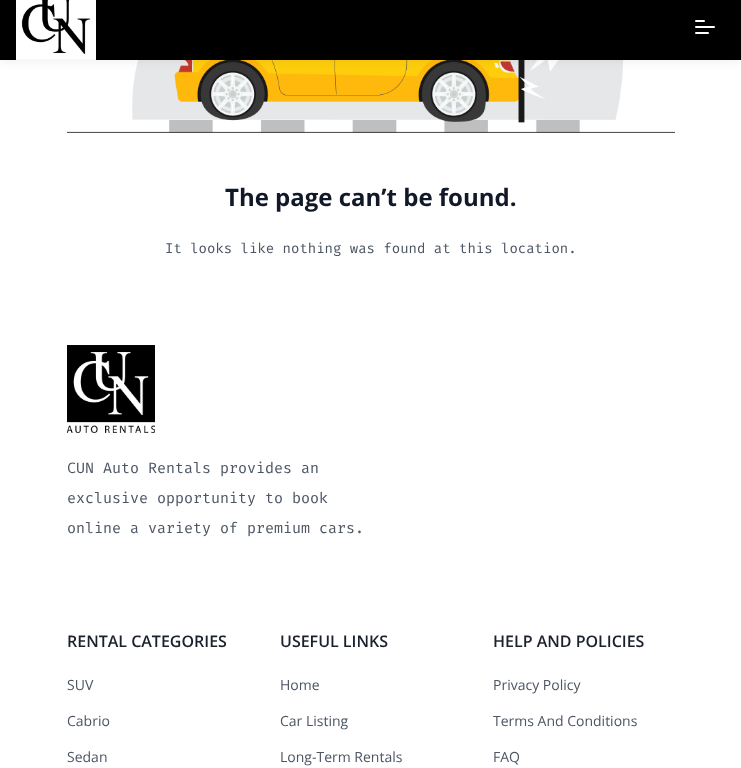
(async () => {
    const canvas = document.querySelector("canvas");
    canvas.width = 741;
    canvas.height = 768;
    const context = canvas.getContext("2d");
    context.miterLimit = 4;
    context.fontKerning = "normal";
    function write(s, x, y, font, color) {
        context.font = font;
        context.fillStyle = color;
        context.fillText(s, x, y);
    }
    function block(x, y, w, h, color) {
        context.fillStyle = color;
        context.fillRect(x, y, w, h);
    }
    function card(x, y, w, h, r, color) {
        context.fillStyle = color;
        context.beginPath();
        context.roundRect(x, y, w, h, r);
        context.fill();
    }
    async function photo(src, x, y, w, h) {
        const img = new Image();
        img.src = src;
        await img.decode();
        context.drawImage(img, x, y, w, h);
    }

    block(0, 0, 741, 768, "rgb(255, 255, 255)");
    await photo("media/2.png", 67, 60, 608, 73);
    context.fillStyle = "rgba(17, 24, 39, 0.06)";
    context.filter = "blur(4px)";
    context.beginPath();
    context.rect(0, 2, 741, 60);
    context.fill();
    context.filter = "none";
    block(0, 0, 741, 60, "rgb(0, 0, 0)");
    await photo("media/1.png", 16, 0, 80, 60);
    card(695, 20, 10, 2, 1, "rgb(255, 255, 255)");
    card(695, 26, 20, 2, 1, "rgb(255, 255, 255)");
    card(695, 32, 14, 2, 1, "rgb(255, 255, 255)");
    write("The page can’t be found.", 225, 206, "bold 24px Open Sans", "rgb(17, 24, 39)");
    write("It looks like nothing was found at this location.", 165, 253, "14px Fira Code", "rgb(75, 85, 99)");
    await photo("media/3.png", 67, 345, 88, 88);
    write("CUN Auto Rentals provides an", 67, 473, "15px Fira Code", "rgb(75, 85, 99)");
    write("exclusive opportunity to book", 67, 503, "15px Fira Code", "rgb(75, 85, 99)");
    write("online a variety of premium cars.", 67, 533, "15px Fira Code", "rgb(75, 85, 99)");
    write("RENTAL CATEGORIES", 67, 647, "600 16px Open Sans", "rgb(26, 32, 44)");
    write("SUV", 67, 690, "14px Open Sans", "rgb(75, 85, 99)");
    write("Cabrio", 67, 726, "14px Open Sans", "rgb(75, 85, 99)");
    write("Sedan", 67, 762, "14px Open Sans", "rgb(75, 85, 99)");
    write("USEFUL LINKS", 280, 647, "600 16px Open Sans", "rgb(26, 32, 44)");
    write("Home", 280, 690, "14px Open Sans", "rgb(75, 85, 99)");
    write("Car Listing", 280, 726, "14px Open Sans", "rgb(75, 85, 99)");
    write("Long-Term Rentals", 280, 762, "14px Open Sans", "rgb(75, 85, 99)");
    write("HELP AND POLICIES", 493, 647, "600 16px Open Sans", "rgb(26, 32, 44)");
    write("Privacy Policy", 493, 690, "14px Open Sans", "rgb(75, 85, 99)");
    write("Terms And Conditions", 493, 726, "14px Open Sans", "rgb(75, 85, 99)");
    write("FAQ", 493, 762, "14px Open Sans", "rgb(75, 85, 99)");
})();
